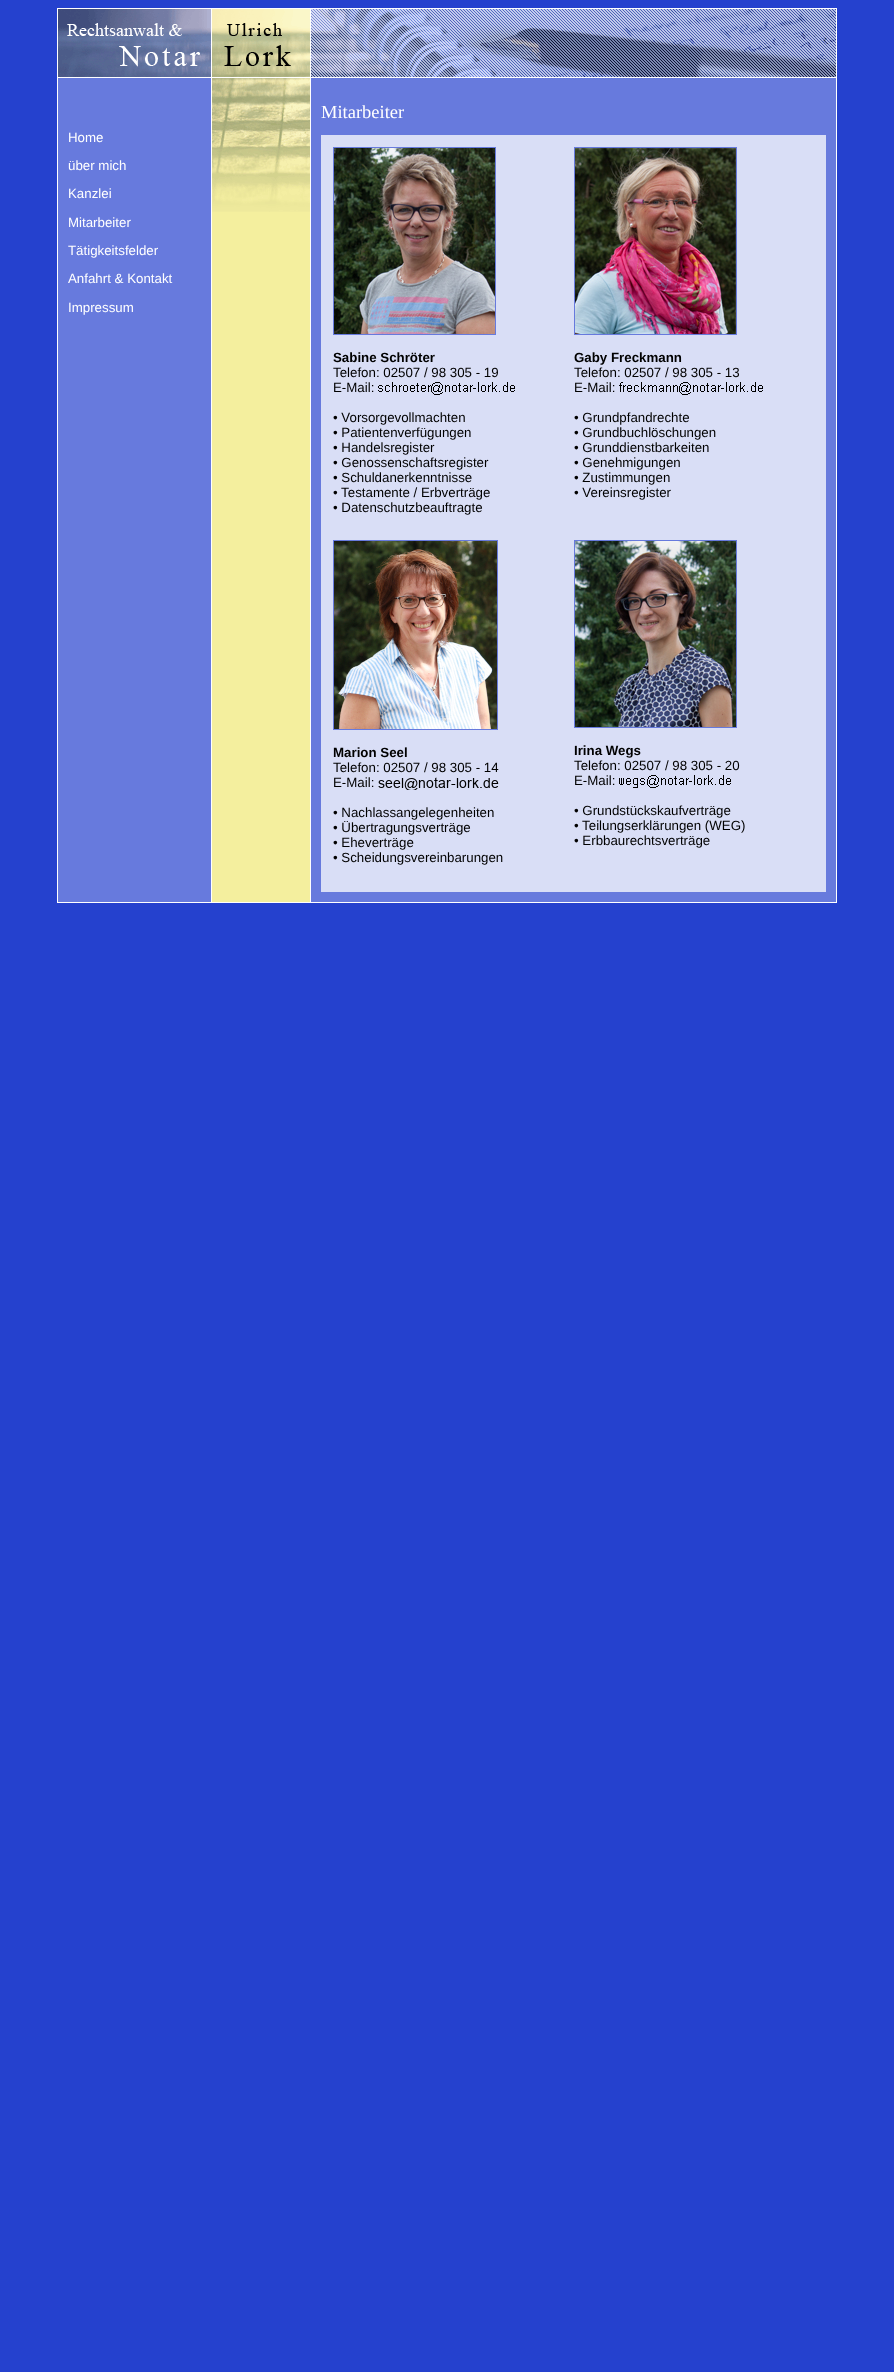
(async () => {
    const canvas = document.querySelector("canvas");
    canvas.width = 894;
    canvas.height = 2372;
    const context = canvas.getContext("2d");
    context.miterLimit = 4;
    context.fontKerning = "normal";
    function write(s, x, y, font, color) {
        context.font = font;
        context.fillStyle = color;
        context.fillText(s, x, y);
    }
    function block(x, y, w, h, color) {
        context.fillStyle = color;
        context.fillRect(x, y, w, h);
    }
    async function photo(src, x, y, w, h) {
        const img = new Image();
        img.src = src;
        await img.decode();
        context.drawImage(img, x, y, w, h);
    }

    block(0, 0, 894, 2372, "rgb(37, 65, 206)");
    block(57, 8, 780, 895, "rgb(255, 255, 255)");
    await photo("media/1.png", 58, 9, 153, 68);
    await photo("media/2.png", 212, 9, 98, 68);
    await photo("media/3.png", 311, 9, 525, 68);
    block(58, 78, 153, 824, "rgb(103, 122, 221)");
    write("Home", 68, 142, "13.3px Liberation Sans", "rgb(255, 255, 255)");
    write("über mich", 68, 170, "13.3px Liberation Sans", "rgb(255, 255, 255)");
    write("Kanzlei", 68, 198, "13.3px Liberation Sans", "rgb(255, 255, 255)");
    write("Mitarbeiter", 68, 227, "13.3px Liberation Sans", "rgb(255, 255, 255)");
    write("Tätigkeitsfelder", 68, 255, "13.3px Liberation Sans", "rgb(255, 255, 255)");
    write("Anfahrt & Kontakt", 68, 283, "13.3px Liberation Sans", "rgb(255, 255, 255)");
    write("Impressum", 68, 312, "13.3px Liberation Sans", "rgb(255, 255, 255)");
    block(212, 212, 98, 690, "rgb(244, 239, 158)");
    await photo("media/4.png", 212, 78, 98, 134);
    block(311, 78, 525, 824, "rgb(103, 122, 221)");
    write("Mitarbeiter", 321, 118, "18.5px Liberation Serif", "rgb(255, 255, 255)");
    block(321, 135, 505, 757, "rgb(217, 222, 246)");
    context.strokeStyle = "rgb(103, 122, 221)";
    context.strokeRect(333.5, 147.5, 162, 187);
    await photo("media/5.png", 334, 148, 161, 186);
    write("Sabine Schröter", 333, 362, "bold 13.3px Liberation Sans", "rgb(0, 0, 0)");
    write("Telefon: 02507 / 98 305 - 19", 333, 377, "13.3px Liberation Sans", "rgb(0, 0, 0)");
    write("E-Mail:", 333, 392, "13.3px Liberation Sans", "rgb(0, 0, 0)");
    await photo("media/6.png", 378, 382, 137, 13);
    write("• Vorsorgevollmachten", 333, 422, "13.3px Liberation Sans", "rgb(0, 0, 0)");
    write("• Patientenverfügungen", 333, 437, "13.3px Liberation Sans", "rgb(0, 0, 0)");
    write("• Handelsregister", 333, 452, "13.3px Liberation Sans", "rgb(0, 0, 0)");
    write("• Genossenschaftsregister", 333, 467, "13.3px Liberation Sans", "rgb(0, 0, 0)");
    write("• Schuldanerkenntnisse", 333, 482, "13.3px Liberation Sans", "rgb(0, 0, 0)");
    write("• Testamente / Erbverträge", 333, 497, "13.3px Liberation Sans", "rgb(0, 0, 0)");
    write("• Datenschutzbeauftragte", 333, 512, "13.3px Liberation Sans", "rgb(0, 0, 0)");
    context.strokeRect(574.5, 147.5, 162, 187);
    await photo("media/7.png", 575, 148, 161, 186);
    write("Gaby Freckmann", 574, 362, "bold 13.3px Liberation Sans", "rgb(0, 0, 0)");
    write("Telefon: 02507 / 98 305 - 13", 574, 377, "13.3px Liberation Sans", "rgb(0, 0, 0)");
    write("E-Mail:", 574, 392, "13.3px Liberation Sans", "rgb(0, 0, 0)");
    await photo("media/8.png", 619, 382, 144, 13);
    write("• Grundpfandrechte", 574, 422, "13.3px Liberation Sans", "rgb(0, 0, 0)");
    write("• Grundbuchlöschungen", 574, 437, "13.3px Liberation Sans", "rgb(0, 0, 0)");
    write("• Grunddienstbarkeiten", 574, 452, "13.3px Liberation Sans", "rgb(0, 0, 0)");
    write("• Genehmigungen", 574, 467, "13.3px Liberation Sans", "rgb(0, 0, 0)");
    write("• Zustimmungen", 574, 482, "13.3px Liberation Sans", "rgb(0, 0, 0)");
    write("• Vereinsregister", 574, 497, "13.3px Liberation Sans", "rgb(0, 0, 0)");
    context.strokeRect(333.5, 540.5, 164, 189);
    await photo("media/9.png", 334, 541, 163, 188);
    write("Marion Seel", 333, 757, "bold 13.3px Liberation Sans", "rgb(0, 0, 0)");
    write("Telefon: 02507 / 98 305 - 14", 333, 772, "13.3px Liberation Sans", "rgb(0, 0, 0)");
    write("E-Mail:", 333, 787, "13.3px Liberation Sans", "rgb(0, 0, 0)");
    await photo("media/10.png", 378, 777, 121, 13);
    write("• Nachlassangelegenheiten", 333, 817, "13.3px Liberation Sans", "rgb(0, 0, 0)");
    write("• Übertragungsverträge", 333, 832, "13.3px Liberation Sans", "rgb(0, 0, 0)");
    write("• Eheverträge", 333, 847, "13.3px Liberation Sans", "rgb(0, 0, 0)");
    write("• Scheidungsvereinbarungen", 333, 862, "13.3px Liberation Sans", "rgb(0, 0, 0)");
    context.strokeRect(574.5, 540.5, 162, 187);
    await photo("media/11.png", 575, 541, 161, 186);
    write("Irina Wegs", 574, 755, "bold 13.3px Liberation Sans", "rgb(0, 0, 0)");
    write("Telefon: 02507 / 98 305 - 20", 574, 770, "13.3px Liberation Sans", "rgb(0, 0, 0)");
    write("E-Mail:", 574, 785, "13.3px Liberation Sans", "rgb(0, 0, 0)");
    await photo("media/12.png", 619, 775, 112, 13);
    write("• Grundstückskaufverträge", 574, 815, "13.3px Liberation Sans", "rgb(0, 0, 0)");
    write("• Teilungserklärungen (WEG)", 574, 830, "13.3px Liberation Sans", "rgb(0, 0, 0)");
    write("• Erbbaurechtsverträge", 574, 845, "13.3px Liberation Sans", "rgb(0, 0, 0)");
})();
